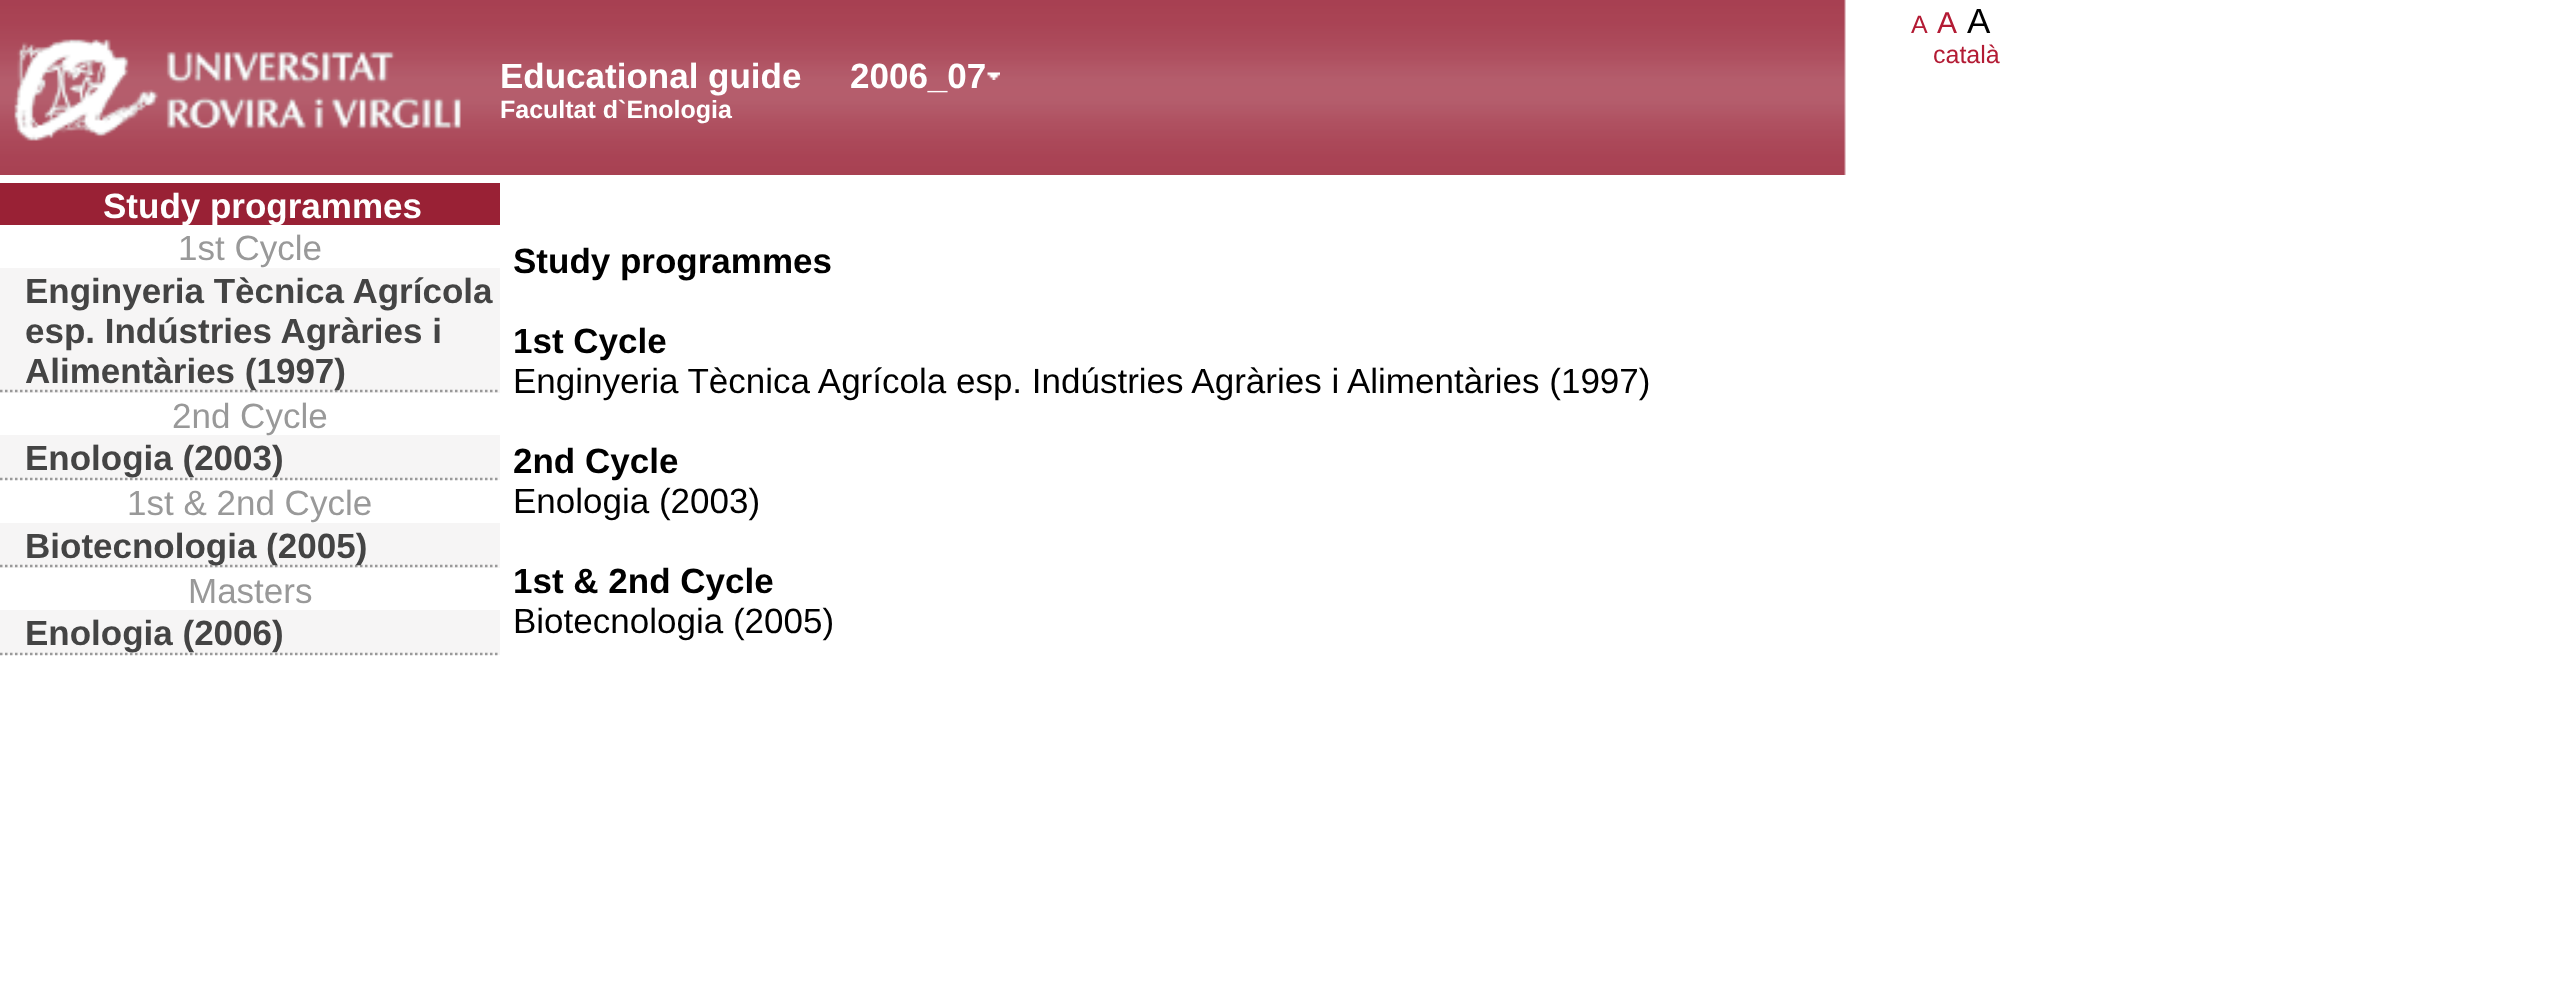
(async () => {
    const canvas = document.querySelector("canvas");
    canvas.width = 2571;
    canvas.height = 1002;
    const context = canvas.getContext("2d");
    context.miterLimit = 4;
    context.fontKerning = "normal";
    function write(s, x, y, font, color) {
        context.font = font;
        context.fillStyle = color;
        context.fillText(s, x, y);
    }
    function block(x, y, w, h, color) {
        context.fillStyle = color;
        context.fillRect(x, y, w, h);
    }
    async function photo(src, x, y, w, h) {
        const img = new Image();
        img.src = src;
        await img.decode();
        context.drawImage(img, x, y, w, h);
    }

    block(0, 0, 2571, 1002, "rgb(255, 255, 255)");
    await photo("media/1.png", 0, 0, 1846, 175);
    write("A", 1911, 33, "25px Liberation Sans", "rgb(179, 27, 52)");
    write("A", 1937, 33, "30px Liberation Sans", "rgb(179, 27, 52)");
    write("A", 1967, 33, "35px Liberation Sans", "rgb(0, 0, 0)");
    write("català", 1933, 63, "25px Liberation Sans", "rgb(179, 27, 52)");
    write("Educational guide", 500, 88, "bold 35px Liberation Sans", "rgb(255, 255, 255)");
    write("Facultat d`Enologia", 500, 118, "bold 25px Liberation Sans", "rgb(255, 255, 255)");
    block(0, 183, 500, 42, "rgb(153, 33, 53)");
    write("Study programmes", 103, 218, "bold 35px Liberation Sans", "rgb(255, 255, 255)");
    write("1st Cycle", 178, 260, "35px Liberation Sans", "rgb(153, 153, 153)");
    block(0, 268, 500, 125, "rgb(246, 245, 245)");
    context.beginPath();
    context.moveTo(0, 391);
    context.lineTo(500, 391);
    context.strokeStyle = "rgb(153, 153, 153)";
    context.lineWidth = 2.5;
    context.setLineDash([2.5, 2.5]);
    context.stroke();
    write("Enginyeria Tècnica Agrícola", 25, 303, "bold 35px Liberation Sans", "rgb(68, 68, 68)");
    write("esp. Indústries Agràries i", 25, 343, "bold 35px Liberation Sans", "rgb(68, 68, 68)");
    write("Alimentàries (1997)", 25, 383, "bold 35px Liberation Sans", "rgb(68, 68, 68)");
    block(0, 435, 500, 45, "rgb(246, 245, 245)");
    write("2nd Cycle", 172, 428, "35px Liberation Sans", "rgb(153, 153, 153)");
    context.beginPath();
    context.moveTo(0, 479);
    context.lineTo(500, 479);
    context.stroke();
    write("Enologia (2003)", 25, 470, "bold 35px Liberation Sans", "rgb(68, 68, 68)");
    write("1st & 2nd Cycle", 127, 515, "35px Liberation Sans", "rgb(153, 153, 153)");
    block(0, 523, 500, 45, "rgb(246, 245, 245)");
    context.beginPath();
    context.moveTo(0, 566);
    context.lineTo(500, 566);
    context.stroke();
    write("Biotecnologia (2005)", 25, 558, "bold 35px Liberation Sans", "rgb(68, 68, 68)");
    write("Masters", 188, 603, "35px Liberation Sans", "rgb(153, 153, 153)");
    block(0, 610, 500, 45, "rgb(246, 245, 245)");
    context.beginPath();
    context.moveTo(0, 654);
    context.lineTo(500, 654);
    context.stroke();
    write("Enologia (2006)", 25, 645, "bold 35px Liberation Sans", "rgb(68, 68, 68)");
    write("Study programmes", 513, 273, "bold 35px Liberation Sans", "rgb(0, 0, 0)");
    write("1st Cycle", 513, 353, "bold 35px Liberation Sans", "rgb(0, 0, 0)");
    write("Enginyeria Tècnica Agrícola esp. Indústries Agràries i Alimentàries (1997)", 513, 393, "35px Liberation Sans", "rgb(0, 0, 0)");
    write("2nd Cycle", 513, 473, "bold 35px Liberation Sans", "rgb(0, 0, 0)");
    write("Enologia (2003)", 513, 513, "35px Liberation Sans", "rgb(0, 0, 0)");
    write("1st & 2nd Cycle", 513, 593, "bold 35px Liberation Sans", "rgb(0, 0, 0)");
    write("Biotecnologia (2005)", 513, 633, "35px Liberation Sans", "rgb(0, 0, 0)");
    write("2006_07", 850, 88, "bold 35px Liberation Sans", "rgb(255, 255, 255)");
    await photo("media/2.png", 987, 72, 13, 8);
})();
